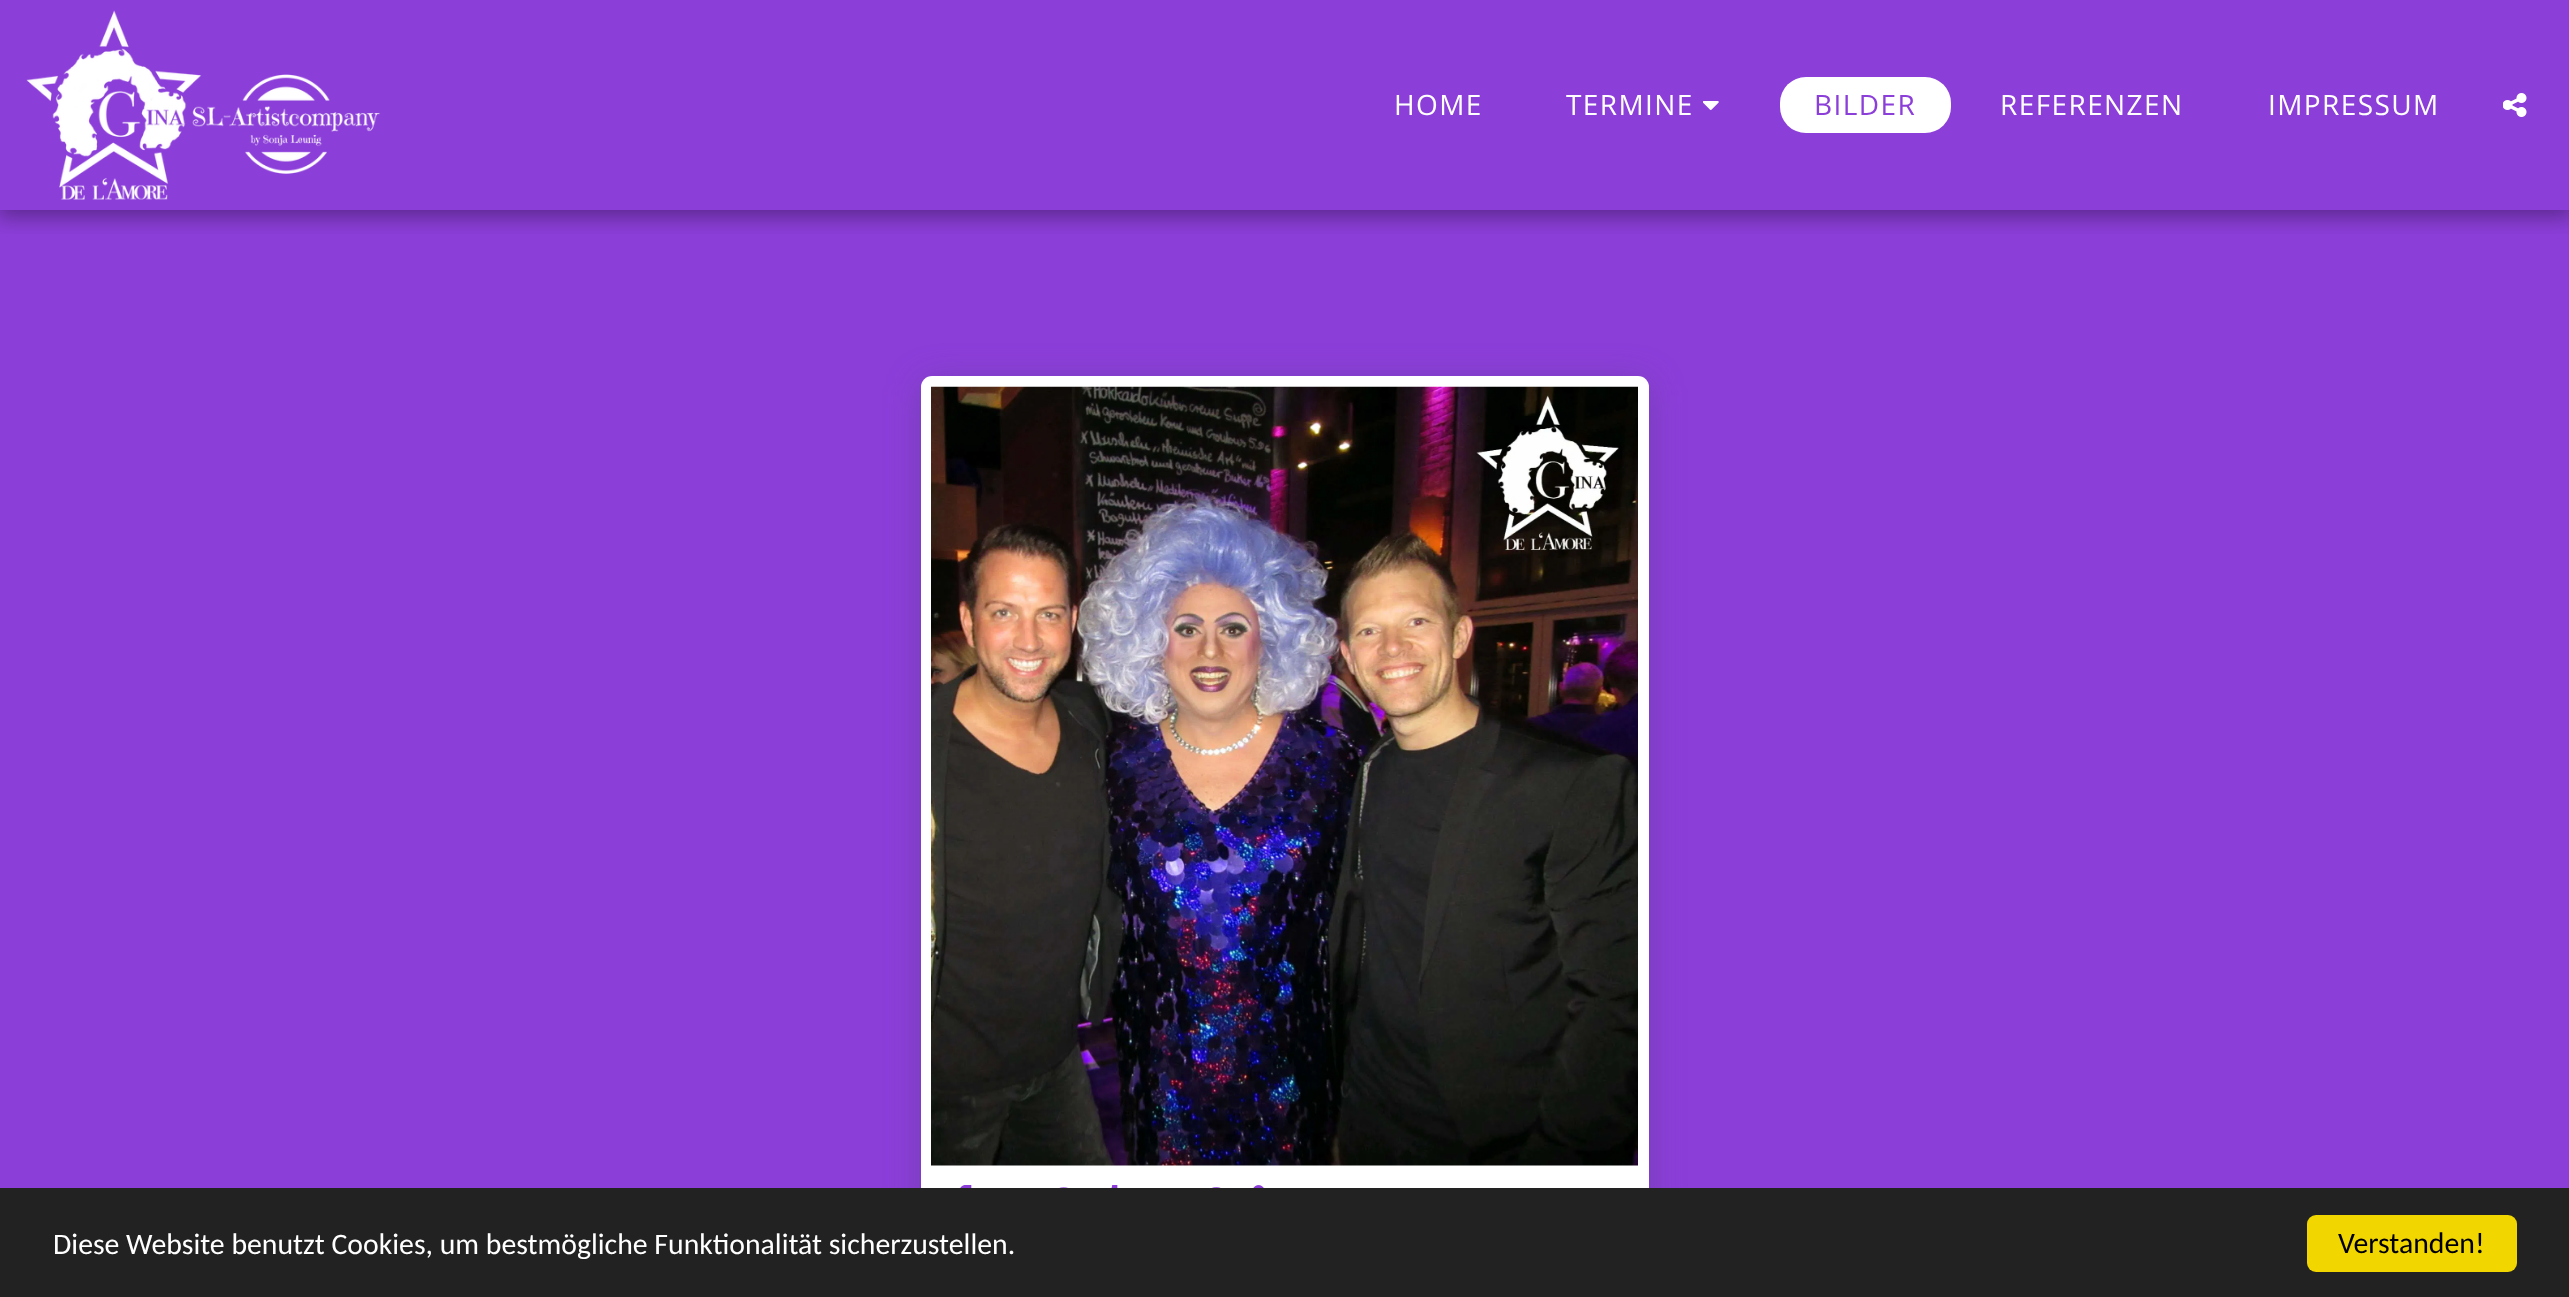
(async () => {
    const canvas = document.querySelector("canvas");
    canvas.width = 2569;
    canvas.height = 1297;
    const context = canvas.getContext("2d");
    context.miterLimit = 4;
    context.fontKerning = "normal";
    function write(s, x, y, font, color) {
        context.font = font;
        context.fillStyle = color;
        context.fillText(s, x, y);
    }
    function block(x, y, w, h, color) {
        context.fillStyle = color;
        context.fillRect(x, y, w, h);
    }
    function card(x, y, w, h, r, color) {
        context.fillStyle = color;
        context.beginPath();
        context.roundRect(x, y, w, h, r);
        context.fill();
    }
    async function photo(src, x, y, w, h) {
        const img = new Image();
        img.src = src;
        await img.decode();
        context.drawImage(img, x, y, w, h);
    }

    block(0, 0, 2569, 1297, "rgb(140, 62, 217)");
    context.save();
    context.beginPath();
    context.rect(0, 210, 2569, 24);
    context.clip();
    context.fillStyle = "rgba(0, 0, 0, 0.35)";
    context.filter = "blur(10.5px)";
    context.beginPath();
    context.rect(-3, 0, 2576, 217);
    context.fill();
    context.filter = "none";
    context.restore();
    await photo("media/1.png", 26, 10, 354, 190);
    context.letterSpacing = "1.4px";
    write("HOME", 1394, 115, "28px Open Sans", "rgb(255, 255, 255)");
    write("TERMINE", 1566, 115, "28px Open Sans", "rgb(255, 255, 255)");
    await photo("media/2.png", 1703, 101, 16, 9);
    card(1780, 77, 171, 56, 26, "rgb(255, 255, 255)");
    write("BILDER", 1814, 115, "28px Open Sans", "rgb(140, 62, 217)");
    write("REFERENZEN", 2000, 115, "28px Open Sans", "rgb(255, 255, 255)");
    write("IMPRESSUM", 2268, 115, "28px Open Sans", "rgb(255, 255, 255)");
    await photo("media/3.png", 2503, 93, 24, 24);
    context.fillStyle = "rgba(77, 63, 122, 0.4)";
    context.filter = "blur(17.5px)";
    context.beginPath();
    context.roundRect(921, 382, 728, 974, 11);
    context.fill();
    context.filter = "none";
    card(921, 376, 728, 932, 11, "rgb(255, 255, 255)");
    await photo("media/4.png", 931, 386, 707, 780);
    await photo("media/5.png", 960, 1185, 12, 3);
    await photo("media/6.png", 1059, 1187, 9, 1);
    await photo("media/7.png", 1111, 1185, 7, 3);
    await photo("media/8.png", 1212, 1187, 9, 1);
    await photo("media/9.png", 1253, 1185, 11, 3);
    block(0, 1188, 2569, 109, "rgb(34, 34, 34)");
    context.letterSpacing = "0px";
    write("Diese Website benutzt Cookies, um bestmögliche Funktionalität sicherzustellen.", 53, 1254, "29.75px Carlito", "rgb(255, 255, 255)");
    card(2307, 1215, 210, 57, 9, "rgb(241, 214, 0)");
    write("Verstanden!", 2338, 1253, "29.75px Carlito", "rgb(0, 0, 0)");
})();
